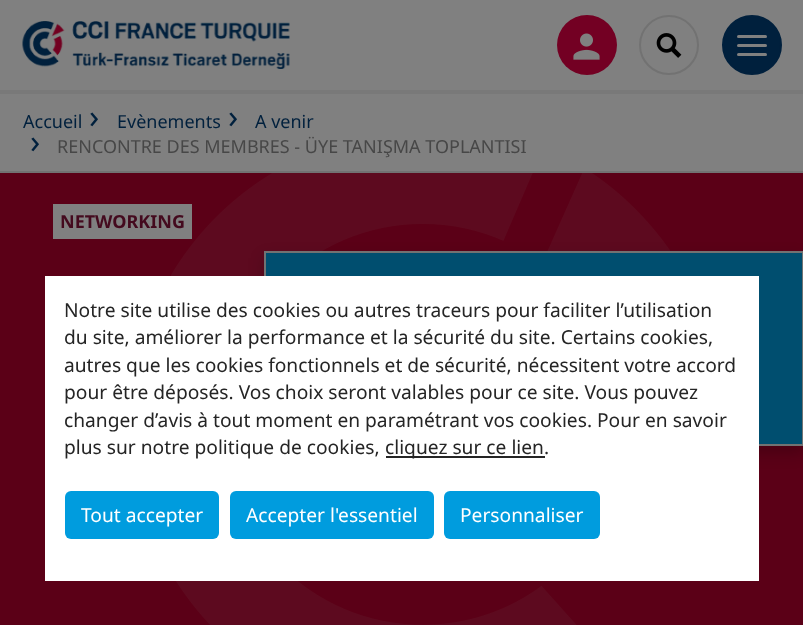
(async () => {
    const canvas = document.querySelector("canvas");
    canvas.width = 803;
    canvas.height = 625;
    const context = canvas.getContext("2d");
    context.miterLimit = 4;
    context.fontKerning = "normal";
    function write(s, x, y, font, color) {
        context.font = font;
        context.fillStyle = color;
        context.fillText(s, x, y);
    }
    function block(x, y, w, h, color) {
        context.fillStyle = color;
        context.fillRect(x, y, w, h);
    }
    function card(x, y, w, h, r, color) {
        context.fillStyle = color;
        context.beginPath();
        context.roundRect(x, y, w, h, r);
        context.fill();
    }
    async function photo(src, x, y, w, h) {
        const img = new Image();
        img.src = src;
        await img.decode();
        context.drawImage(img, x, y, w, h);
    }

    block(0, 0, 803, 625, "rgb(128, 128, 128)");
    block(0, 90, 803, 4, "rgb(121, 121, 121)");
    await photo("media/1.png", 22, 21, 268, 48);
    context.fillStyle = "rgb(115, 0, 35)";
    context.beginPath();
    context.arc(587, 45, 30, 0, Math.PI * 2);
    context.fill();
    await photo("media/2.png", 573, 33, 27, 27);
    context.beginPath();
    context.arc(669, 45, 29, 0, Math.PI * 2);
    context.strokeStyle = "rgb(114, 114, 114)";
    context.lineWidth = 2;
    context.stroke();
    await photo("media/3.png", 656, 33, 26, 25);
    context.fillStyle = "rgb(0, 32, 61)";
    context.beginPath();
    context.arc(752, 45, 29, 0, Math.PI * 2);
    context.fill();
    context.strokeStyle = "rgb(0, 32, 61)";
    context.stroke();
    card(737, 35, 30, 3, 1.5, "rgb(128, 128, 128)");
    card(737, 44, 30, 3, 1.5, "rgb(128, 128, 128)");
    card(737, 53, 30, 3, 1.5, "rgb(128, 128, 128)");
    block(0, 171, 803, 2, "rgb(114, 114, 114)");
    write("Accueil", 23, 128, "18px Noto Sans", "rgb(0, 32, 61)");
    write("›", 89, 128, "33px Noto Sans", "rgb(0, 32, 61)");
    write("Evènements", 117, 128, "18px Noto Sans", "rgb(0, 32, 61)");
    write("›", 228, 128, "33px Noto Sans", "rgb(0, 32, 61)");
    write("A venir", 255, 128, "18px Noto Sans", "rgb(0, 32, 61)");
    write("›", 30, 153, "33px Noto Sans", "rgb(0, 32, 61)");
    write("RENCONTRE DES MEMBRES - ÜYE TANIŞMA TOPLANTISI", 57, 153, "18px Noto Sans", "rgb(71, 71, 71)");
    block(0, 173, 803, 452, "rgb(91, 0, 23)");
    await photo("media/4.png", 171, 173, 499, 452);
    block(53, 204, 139, 35, "rgb(128, 128, 128)");
    write("NETWORKING", 60, 228, "bold 18px Noto Sans", "rgb(68, 10, 30)");
    context.fillStyle = "rgba(0, 0, 0, 0.2)";
    context.filter = "blur(7.5px)";
    context.beginPath();
    context.rect(264, 258, 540, 195);
    context.fill();
    context.filter = "none";
    context.fillStyle = "rgb(0, 78, 111)";
    context.beginPath();
    context.rect(265, 252, 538, 193);
    context.fill();
    context.strokeStyle = "rgb(114, 114, 114)";
    context.stroke();
    block(45, 276, 714, 305, "rgb(255, 255, 255)");
    write("Notre site utilise des cookies ou autres traceurs pour faciliter l’utilisation", 64, 317, "19.2px Noto Sans", "rgb(37, 37, 37)");
    write("du site, améliorer la performance et la sécurité du site. Certains cookies,", 64, 344, "19.2px Noto Sans", "rgb(37, 37, 37)");
    write("autres que les cookies fonctionnels et de sécurité, nécessitent votre accord", 64, 372, "19.2px Noto Sans", "rgb(37, 37, 37)");
    write("pour être déposés. Vos choix seront valables pour ce site. Vous pouvez", 64, 399, "19.2px Noto Sans", "rgb(37, 37, 37)");
    write("changer d’avis à tout moment en paramétrant vos cookies. Pour en savoir", 64, 427, "19.2px Noto Sans", "rgb(37, 37, 37)");
    write("plus sur notre politique de cookies,", 64, 454, "19.2px Noto Sans", "rgb(37, 37, 37)");
    block(386, 456, 159, 2, "rgb(37, 37, 37)");
    write("cliquez sur ce lien.", 385, 454, "19.2px Noto Sans", "rgb(37, 37, 37)");
    card(65, 491, 154, 48, 6, "rgb(0, 156, 222)");
    write("Tout accepter", 81, 522, "19.2px Noto Sans", "rgb(255, 255, 255)");
    card(230, 491, 204, 48, 6, "rgb(0, 156, 222)");
    write("Accepter l'essentiel", 246, 522, "19.2px Noto Sans", "rgb(255, 255, 255)");
    card(444, 491, 156, 48, 6, "rgb(0, 156, 222)");
    write("Personnaliser", 460, 522, "19.2px Noto Sans", "rgb(255, 255, 255)");
})();
